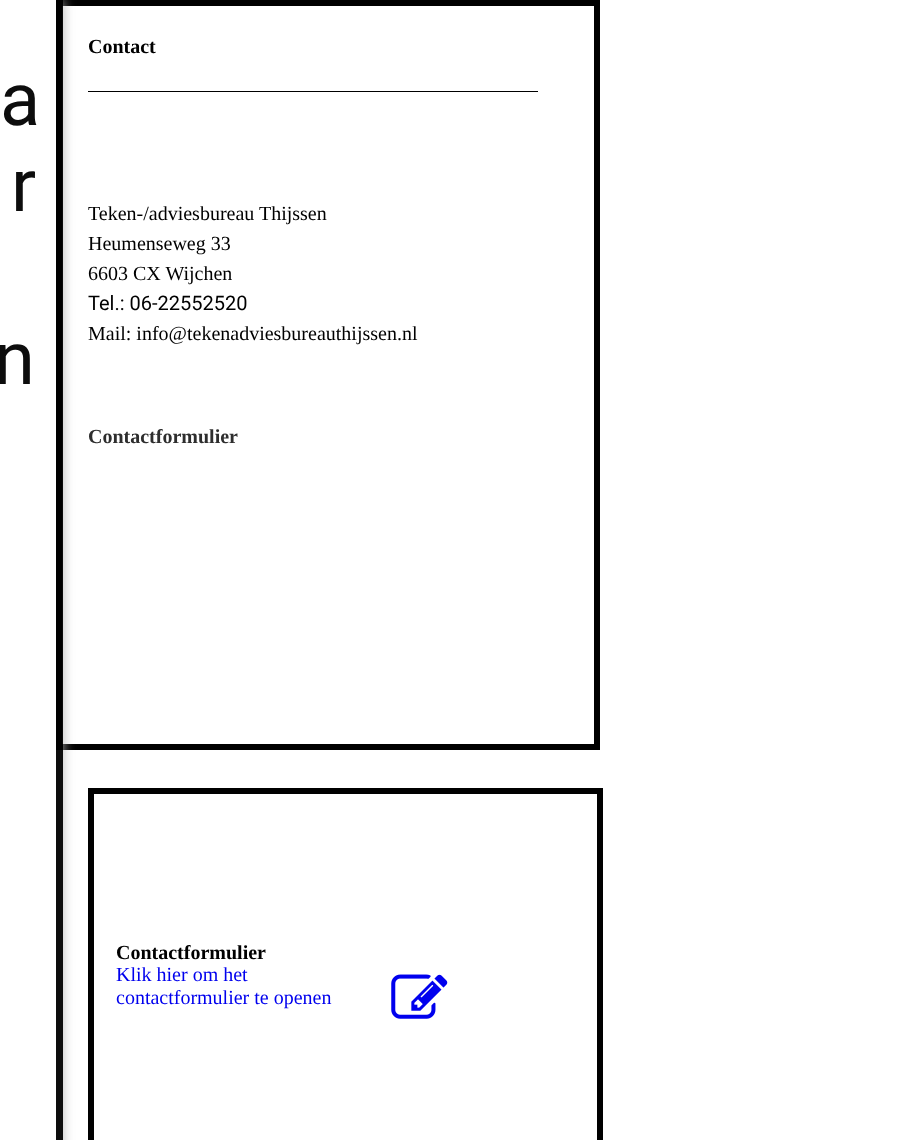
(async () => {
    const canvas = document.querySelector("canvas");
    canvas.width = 918;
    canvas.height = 1140;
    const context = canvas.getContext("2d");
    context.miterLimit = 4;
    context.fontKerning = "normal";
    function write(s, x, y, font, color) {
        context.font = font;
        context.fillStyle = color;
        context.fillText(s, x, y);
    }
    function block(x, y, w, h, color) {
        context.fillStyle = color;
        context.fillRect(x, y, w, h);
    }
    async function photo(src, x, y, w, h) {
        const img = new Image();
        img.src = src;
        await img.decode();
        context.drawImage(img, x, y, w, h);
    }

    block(0, 0, 918, 1140, "rgb(255, 255, 255)");
    context.strokeStyle = "rgb(0, 0, 0)";
    context.lineWidth = 6;
    context.strokeRect(59, 3, 538, 744);
    context.save();
    context.beginPath();
    context.moveTo(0, 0);
    context.lineTo(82, 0);
    context.lineTo(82, 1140);
    context.lineTo(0, 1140);
    context.closePath();
    context.moveTo(-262, 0);
    context.lineTo(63, 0);
    context.lineTo(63, 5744);
    context.lineTo(-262, 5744);
    context.closePath();
    context.clip("evenodd");
    context.fillStyle = "rgba(181, 181, 181, 0.95)";
    context.filter = "blur(6px)";
    context.beginPath();
    context.rect(-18, 0, 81, 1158);
    context.fill();
    context.filter = "none";
    context.restore();
    block(56, 0, 7, 1140, "rgba(0, 0, 0, 0.95)");
    write("a", 0, 125, "74px Roboto", "rgb(13, 13, 13)");
    write("r", 11, 211, "74px Roboto", "rgb(13, 13, 13)");
    write("n", -6, 384, "74px Roboto", "rgb(13, 13, 13)");
    write("Contact", 88, 53, "bold 20px Liberation Serif", "rgb(0, 0, 0)");
    block(88, 91, 450, 1, "rgb(0, 0, 0)");
    write("Teken-/adviesbureau Thijssen", 88, 220, "20px Liberation Serif", "rgb(0, 0, 0)");
    write("Heumenseweg 33", 88, 250, "20px Liberation Serif", "rgb(0, 0, 0)");
    write("6603 CX Wijchen", 88, 280, "20px Liberation Serif", "rgb(0, 0, 0)");
    write("Tel.: 06-22552520", 88, 310, "20px Roboto", "rgb(0, 0, 0)");
    write("Mail: info@tekenadviesbureauthijssen.nl", 88, 340, "20px Liberation Serif", "rgb(0, 0, 0)");
    write("Contactformulier", 88, 443, "bold 20px Liberation Serif", "rgb(46, 46, 46)");
    context.strokeRect(91, 791, 509, 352);
    write("Contactformulier", 116, 959, "bold 20px Liberation Serif", "rgb(0, 0, 0)");
    write("Klik hier om het", 116, 981, "20px Liberation Serif", "rgb(0, 0, 238)");
    write("contactformulier te openen", 116, 1004, "20px Liberation Serif", "rgb(0, 0, 238)");
    await photo("media/1.png", 391, 974, 57, 45);
})();
